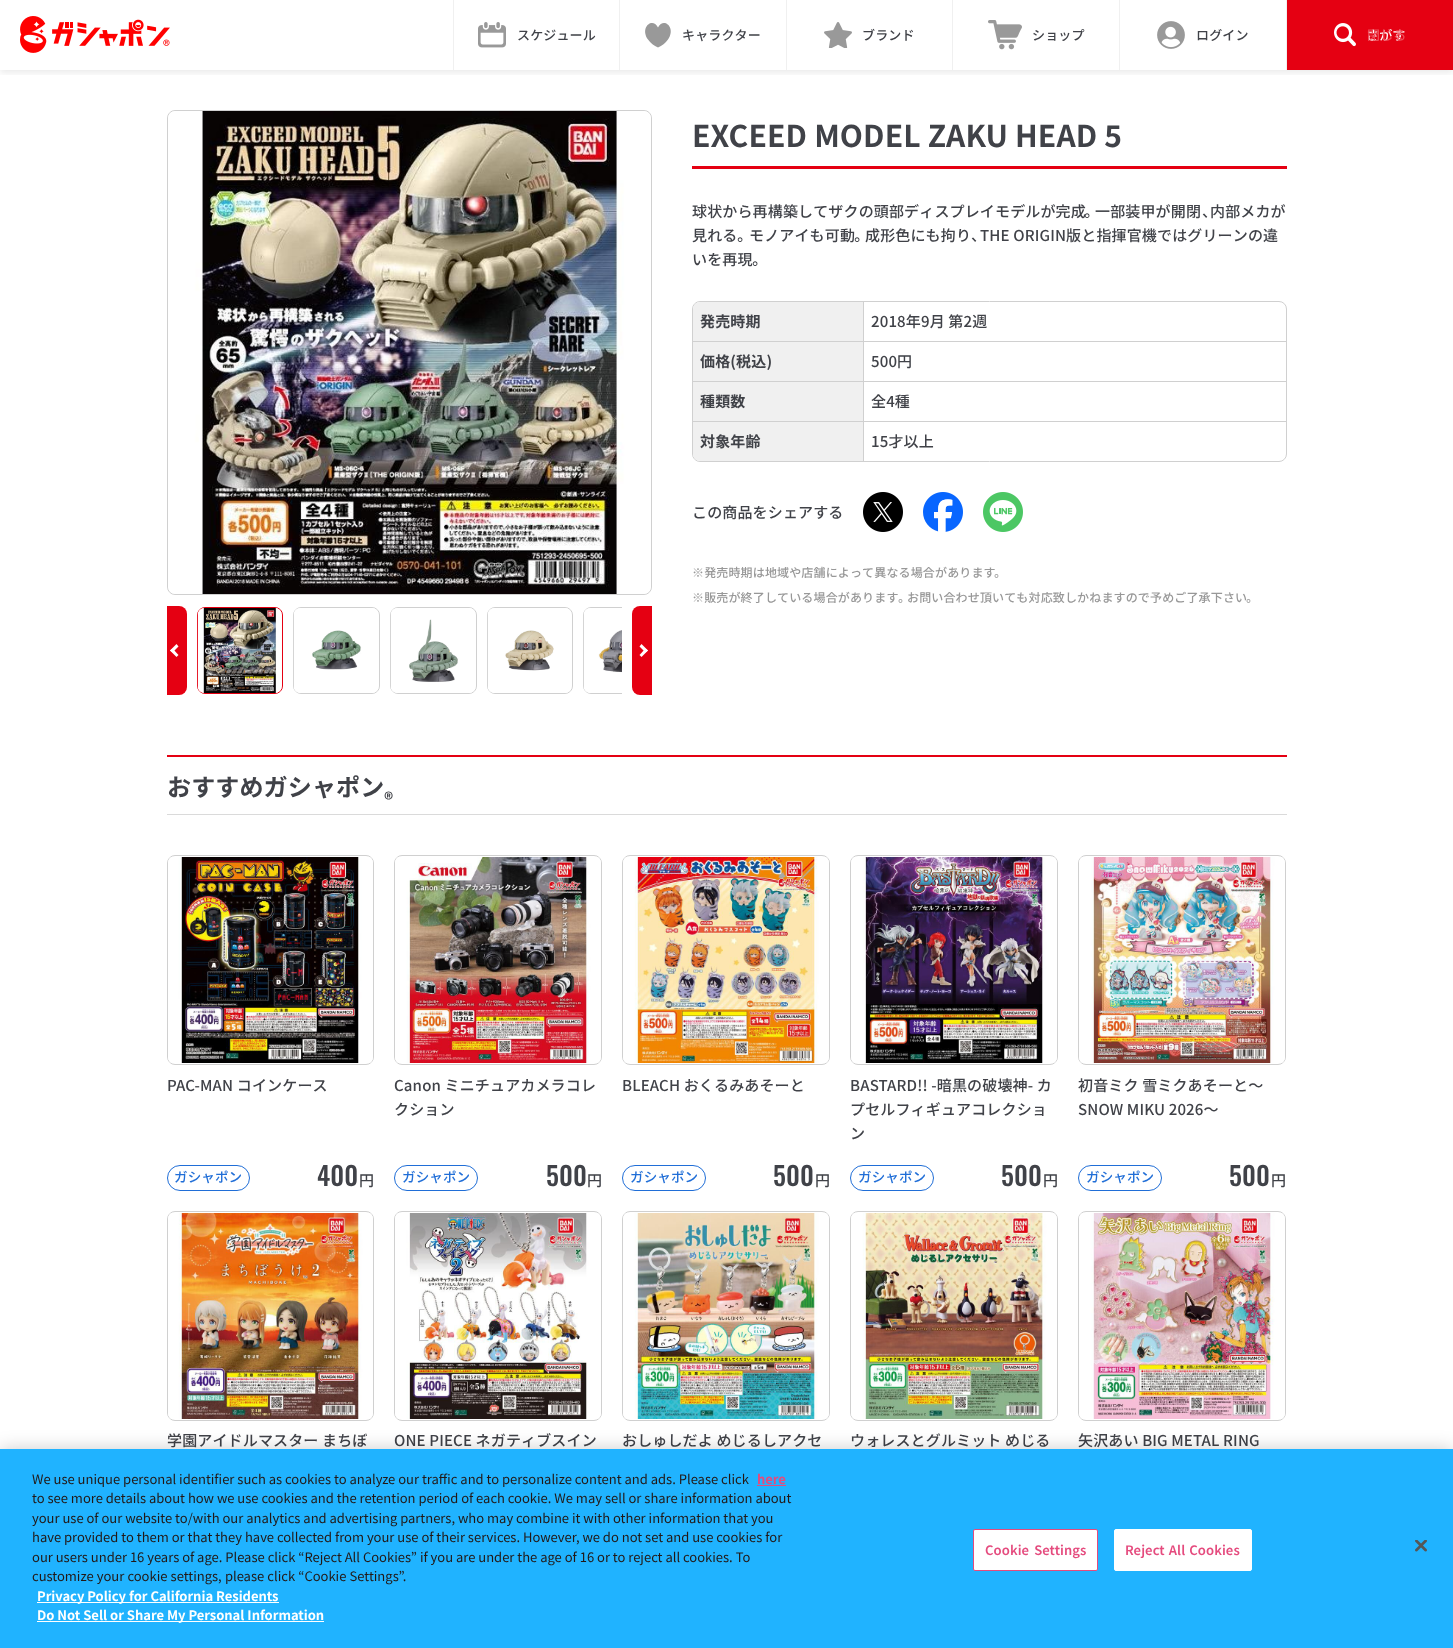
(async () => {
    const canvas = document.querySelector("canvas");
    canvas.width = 1453;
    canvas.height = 1648;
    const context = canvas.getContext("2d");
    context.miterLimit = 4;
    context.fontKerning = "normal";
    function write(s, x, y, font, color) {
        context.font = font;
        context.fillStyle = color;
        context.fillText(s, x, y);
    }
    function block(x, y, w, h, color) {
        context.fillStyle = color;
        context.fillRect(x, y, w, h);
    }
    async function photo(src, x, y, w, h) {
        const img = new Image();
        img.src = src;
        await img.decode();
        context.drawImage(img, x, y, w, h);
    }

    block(0, 0, 1453, 1648, "rgb(255, 255, 255)");
    context.save();
    context.beginPath();
    context.rect(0, 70, 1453, 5);
    context.clip();
    context.fillStyle = "rgba(0, 0, 0, 0.08)";
    context.filter = "blur(3px)";
    context.beginPath();
    context.rect(0, 3, 1453, 70);
    context.fill();
    context.filter = "none";
    context.restore();
    await photo("media/1.png", 20, 16, 150, 37);
    block(619, 0, 1, 70, "rgb(240, 240, 240)");
    block(453, 0, 1, 70, "rgb(240, 240, 240)");
    await photo("media/2.png", 478, 22, 28, 26);
    context.letterSpacing = "0.15px";
    write("スケジュール", 517, 40, "500 13px Noto Sans JP", "rgb(64, 66, 72)");
    block(786, 0, 1, 70, "rgb(240, 240, 240)");
    context.fillStyle = "rgb(153, 153, 153)";
    context.beginPath();
    context.moveTo(658, 47.5);
    context.bezierCurveTo(654, 46, 650.5, 43, 648, 39.5);
    context.bezierCurveTo(639.5, 27.5, 652.5, 16.5, 658, 27.5);
    context.bezierCurveTo(663.5, 16.5, 676.5, 27.5, 668, 39.5);
    context.bezierCurveTo(665.5, 43, 662, 46, 658, 47.5);
    context.closePath();
    context.fill("evenodd");
    write("キャラクター", 682, 40, "500 13px Noto Sans JP", "rgb(64, 66, 72)");
    block(952, 0, 1, 70, "rgb(240, 240, 240)");
    await photo("media/3.png", 824, 22, 28, 26);
    write("ブランド", 862, 40, "500 13px Noto Sans JP", "rgb(64, 66, 72)");
    block(1119, 0, 1, 70, "rgb(240, 240, 240)");
    await photo("media/4.png", 988, 20, 34, 30);
    write("ショップ", 1032, 40, "500 13px Noto Sans JP", "rgb(64, 66, 72)");
    block(1286, 0, 1, 70, "rgb(240, 240, 240)");
    await photo("media/5.png", 1157, 21, 28, 28);
    write("ログイン", 1196, 40, "500 13px Noto Sans JP", "rgb(64, 66, 72)");
    block(1287, 0, 166, 70, "rgb(229, 0, 18)");
    await photo("media/6.png", 1334, 23, 22, 24);
    write("さがす", 1366, 40, "500 13px Noto Sans JP", "rgb(255, 255, 255)");
    write("閉じる", 1367, 40, "500 13px Noto Sans JP", "rgb(237, 76, 88)");
    context.beginPath();
    context.roundRect(167.5, 110.5, 484, 484, 7.5);
    context.strokeStyle = "rgb(208, 208, 208)";
    context.stroke();
    await photo("media/7.png", 168, 111, 483, 483);
    context.fillStyle = "rgb(229, 0, 18)";
    context.beginPath();
    context.roundRect(167, 606, 20, 89, [0, 8, 8, 0]);
    context.fill();
    context.fillStyle = "rgb(255, 255, 255)";
    context.beginPath();
    context.moveTo(170, 650.5);
    context.lineTo(176.5, 644);
    context.lineTo(178.5, 646.5);
    context.lineTo(172.5, 652.5);
    context.closePath();
    context.fill();
    context.beginPath();
    context.moveTo(170, 650.5);
    context.lineTo(172.5, 648.5);
    context.lineTo(178.5, 655);
    context.lineTo(176.5, 657);
    context.closePath();
    context.fill();
    context.save();
    context.beginPath();
    context.rect(197, 606, 425, 89);
    context.clip();
    context.beginPath();
    context.roundRect(583.5, 607.5, 86, 86, 7.5);
    context.stroke();
    context.restore();
    context.fillStyle = "rgb(229, 0, 18)";
    context.beginPath();
    context.roundRect(632, 606, 20, 89, [8, 0, 0, 8]);
    context.fill();
    context.fillStyle = "rgb(255, 255, 255)";
    context.beginPath();
    context.moveTo(641.5, 644);
    context.lineTo(648, 650.5);
    context.lineTo(645.5, 652.5);
    context.lineTo(639.5, 646.5);
    context.closePath();
    context.fill();
    context.beginPath();
    context.moveTo(645.5, 648.5);
    context.lineTo(648, 650.5);
    context.lineTo(641.5, 657);
    context.lineTo(639.5, 655);
    context.closePath();
    context.fill();
    context.beginPath();
    context.roundRect(197.5, 607.5, 85, 86, 7.5);
    context.strokeStyle = "rgb(229, 0, 18)";
    context.stroke();
    await photo("media/8.png", 197, 608, 85, 85);
    context.beginPath();
    context.roundRect(293.5, 607.5, 86, 86, 7.5);
    context.strokeStyle = "rgb(208, 208, 208)";
    context.stroke();
    await photo("media/9.png", 293, 608, 86, 85);
    context.beginPath();
    context.roundRect(390.5, 607.5, 86, 86, 7.5);
    context.stroke();
    await photo("media/10.png", 390, 608, 86, 85);
    context.beginPath();
    context.roundRect(487.5, 607.5, 85, 86, 7.5);
    context.stroke();
    await photo("media/11.png", 487, 608, 85, 85);
    await photo("media/12.png", 583, 608, 39, 85);
    block(692, 166, 595, 3, "rgb(229, 0, 18)");
    write("EXCEED MODEL ZAKU HEAD 5", 692, 147, "bold 30px Noto Sans JP", "rgb(64, 66, 72)");
    write("球状から再構築してザクの頭部ディスプレイモデルが完成", 692, 217, "500 15px Noto Sans JP", "rgb(64, 66, 72)");
    write("。", 1084, 217, "500 15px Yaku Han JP", "rgb(64, 66, 72)");
    write("一部装甲が開閉", 1095, 217, "500 15px Noto Sans JP", "rgb(64, 66, 72)");
    write("、", 1202, 217, "500 15px Yaku Han JP", "rgb(64, 66, 72)");
    write("内部メカが", 1210, 217, "500 15px Noto Sans JP", "rgb(64, 66, 72)");
    write("見れる", 692, 241, "500 15px Noto Sans JP", "rgb(64, 66, 72)");
    write("。", 737, 241, "500 15px Yaku Han JP", "rgb(64, 66, 72)");
    write("モノアイも可動", 749, 241, "500 15px Noto Sans JP", "rgb(64, 66, 72)");
    write("。", 854, 241, "500 15px Yaku Han JP", "rgb(64, 66, 72)");
    write("成形色にも拘り", 865, 241, "500 15px Noto Sans JP", "rgb(64, 66, 72)");
    write("、", 971, 241, "500 15px Yaku Han JP", "rgb(64, 66, 72)");
    write("THE ORIGIN版と指揮官機ではグリーンの違", 980, 241, "500 15px Noto Sans JP", "rgb(64, 66, 72)");
    write("いを再現", 692, 265, "500 15px Noto Sans JP", "rgb(64, 66, 72)");
    write("。", 752, 265, "500 15px Yaku Han JP", "rgb(64, 66, 72)");
    context.beginPath();
    context.roundRect(692.5, 301.5, 594, 160, 7.5);
    context.stroke();
    context.fillStyle = "rgb(240, 240, 240)";
    context.beginPath();
    context.roundRect(693, 302, 170, 39, [7, 0, 0, 0]);
    context.fill();
    write("発売時期", 700, 327, "bold 15px Noto Sans JP", "rgb(64, 66, 72)");
    block(863, 302, 1, 39, "rgb(208, 208, 208)");
    write("2018年9月 第2週", 871, 327, "500 15px Noto Sans JP", "rgb(64, 66, 72)");
    block(693, 341, 593, 1, "rgb(208, 208, 208)");
    block(693, 342, 170, 39, "rgb(240, 240, 240)");
    write("価格(税込)", 700, 367, "bold 15px Noto Sans JP", "rgb(64, 66, 72)");
    block(863, 342, 1, 39, "rgb(208, 208, 208)");
    write("500円", 871, 367, "500 15px Noto Sans JP", "rgb(64, 66, 72)");
    block(693, 381, 593, 1, "rgb(208, 208, 208)");
    block(693, 382, 170, 39, "rgb(240, 240, 240)");
    write("種類数", 700, 407, "bold 15px Noto Sans JP", "rgb(64, 66, 72)");
    block(863, 382, 1, 39, "rgb(208, 208, 208)");
    write("全4種", 871, 407, "500 15px Noto Sans JP", "rgb(64, 66, 72)");
    block(693, 421, 593, 1, "rgb(208, 208, 208)");
    context.fillStyle = "rgb(240, 240, 240)";
    context.beginPath();
    context.roundRect(693, 422, 170, 39, [0, 0, 0, 7]);
    context.fill();
    write("対象年齢", 700, 447, "bold 15px Noto Sans JP", "rgb(64, 66, 72)");
    block(863, 422, 1, 39, "rgb(208, 208, 208)");
    write("15才以上", 871, 447, "500 15px Noto Sans JP", "rgb(64, 66, 72)");
    write("この商品をシェアする", 692, 518, "500 15px Noto Sans JP", "rgb(64, 66, 72)");
    await photo("media/13.png", 863, 492, 40, 40);
    await photo("media/14.png", 923, 492, 40, 40);
    await photo("media/15.png", 983, 492, 40, 40);
    write("※発売時期は地域や店舗によって異なる場合があります", 692, 577, "500 12px Noto Sans JP", "rgb(152, 152, 152)");
    write("。", 994, 577, "500 12px Yaku Han JP", "rgb(152, 152, 152)");
    write("※販売が終了している場合があります", 692, 602, "500 12px Noto Sans JP", "rgb(152, 152, 152)");
    write("。", 898, 602, "500 12px Yaku Han JP", "rgb(152, 152, 152)");
    write("お問い合わせ頂いても対応致しかねますので予めご了承下さい", 907, 602, "500 12px Noto Sans JP", "rgb(152, 152, 152)");
    write("。", 1246, 602, "500 12px Yaku Han JP", "rgb(152, 152, 152)");
    block(167, 755, 1120, 2, "rgb(229, 0, 18)");
    block(167, 814, 1120, 1, "rgb(218, 218, 218)");
    write("おすすめガシャポン", 167, 796, "bold 24px Noto Sans JP", "rgb(64, 66, 72)");
    write("®", 384, 806, "bold 18px Noto Sans JP", "rgb(64, 66, 72)");
    context.beginPath();
    context.roundRect(167.5, 855.5, 206, 209, 7.5);
    context.stroke();
    await photo("media/16.png", 168, 857, 205, 206);
    write("PAC-MAN コインケース", 167, 1091, "500 15px Noto Sans JP", "rgb(64, 66, 72)");
    context.beginPath();
    context.roundRect(167.5, 1165.5, 82, 25, 12.5);
    context.strokeStyle = "rgb(32, 110, 215)";
    context.stroke();
    write("ガシャポン", 174, 1182, "500 13.5px Noto Sans JP", "rgb(32, 110, 215)");
    write("400", 317, 1186, "500 26px Oswald", "rgb(64, 66, 72)");
    write("円", 359, 1186, "500 15px Noto Sans JP", "rgb(64, 66, 72)");
    context.beginPath();
    context.roundRect(394.5, 855.5, 207, 209, 7.5);
    context.strokeStyle = "rgb(208, 208, 208)";
    context.stroke();
    await photo("media/17.png", 395, 857, 206, 206);
    write("Canon ミニチュアカメラコレ", 394, 1091, "500 15px Noto Sans JP", "rgb(64, 66, 72)");
    write("クション", 394, 1115, "500 15px Noto Sans JP", "rgb(64, 66, 72)");
    context.beginPath();
    context.roundRect(394.5, 1165.5, 83, 25, 12.5);
    context.strokeStyle = "rgb(32, 110, 215)";
    context.stroke();
    write("ガシャポン", 402, 1182, "500 13.5px Noto Sans JP", "rgb(32, 110, 215)");
    write("500", 546, 1186, "500 26px Oswald", "rgb(64, 66, 72)");
    write("円", 587, 1186, "500 15px Noto Sans JP", "rgb(64, 66, 72)");
    context.beginPath();
    context.roundRect(622.5, 855.5, 207, 209, 7.5);
    context.strokeStyle = "rgb(208, 208, 208)";
    context.stroke();
    await photo("media/18.png", 623, 857, 206, 206);
    write("BLEACH おくるみあそーと", 622, 1091, "500 15px Noto Sans JP", "rgb(64, 66, 72)");
    context.beginPath();
    context.roundRect(622.5, 1165.5, 83, 25, 12.5);
    context.strokeStyle = "rgb(32, 110, 215)";
    context.stroke();
    write("ガシャポン", 630, 1182, "500 13.5px Noto Sans JP", "rgb(32, 110, 215)");
    write("500", 773, 1186, "500 26px Oswald", "rgb(64, 66, 72)");
    write("円", 815, 1186, "500 15px Noto Sans JP", "rgb(64, 66, 72)");
    context.beginPath();
    context.roundRect(850.5, 855.5, 207, 209, 7.5);
    context.strokeStyle = "rgb(208, 208, 208)";
    context.stroke();
    await photo("media/19.png", 851, 857, 206, 206);
    write("BASTARD!! -暗黒の破壊神- カ", 850, 1091, "500 15px Noto Sans JP", "rgb(64, 66, 72)");
    write("プセルフィギュアコレクショ", 850, 1115, "500 15px Noto Sans JP", "rgb(64, 66, 72)");
    write("ン", 850, 1139, "500 15px Noto Sans JP", "rgb(64, 66, 72)");
    context.beginPath();
    context.roundRect(850.5, 1165.5, 83, 25, 12.5);
    context.strokeStyle = "rgb(32, 110, 215)";
    context.stroke();
    write("ガシャポン", 858, 1182, "500 13.5px Noto Sans JP", "rgb(32, 110, 215)");
    write("500", 1001, 1186, "500 26px Oswald", "rgb(64, 66, 72)");
    write("円", 1043, 1186, "500 15px Noto Sans JP", "rgb(64, 66, 72)");
    context.beginPath();
    context.roundRect(1078.5, 855.5, 207, 209, 7.5);
    context.strokeStyle = "rgb(208, 208, 208)";
    context.stroke();
    await photo("media/20.png", 1079, 857, 206, 206);
    write("初音ミク 雪ミクあそーと～", 1078, 1091, "500 15px Noto Sans JP", "rgb(64, 66, 72)");
    write("SNOW MIKU 2026～", 1078, 1115, "500 15px Noto Sans JP", "rgb(64, 66, 72)");
    context.beginPath();
    context.roundRect(1078.5, 1165.5, 83, 25, 12.5);
    context.strokeStyle = "rgb(32, 110, 215)";
    context.stroke();
    write("ガシャポン", 1086, 1182, "500 13.5px Noto Sans JP", "rgb(32, 110, 215)");
    write("500", 1229, 1186, "500 26px Oswald", "rgb(64, 66, 72)");
    write("円", 1271, 1186, "500 15px Noto Sans JP", "rgb(64, 66, 72)");
    context.beginPath();
    context.roundRect(167.5, 1211.5, 206, 209, 7.5);
    context.strokeStyle = "rgb(208, 208, 208)";
    context.stroke();
    await photo("media/21.png", 168, 1213, 205, 206);
    write("学園アイドルマスター まちぼ", 167, 1446, "500 15px Noto Sans JP", "rgb(64, 66, 72)");
    context.beginPath();
    context.roundRect(394.5, 1211.5, 207, 209, 7.5);
    context.stroke();
    await photo("media/22.png", 395, 1213, 206, 206);
    write("ONE PIECE ネガティブスイン", 394, 1446, "500 15px Noto Sans JP", "rgb(64, 66, 72)");
    context.beginPath();
    context.roundRect(622.5, 1211.5, 207, 209, 7.5);
    context.stroke();
    await photo("media/23.png", 623, 1213, 206, 206);
    write("おしゅしだよ めじるしアクセ", 622, 1446, "500 15px Noto Sans JP", "rgb(64, 66, 72)");
    context.beginPath();
    context.roundRect(850.5, 1211.5, 207, 209, 7.5);
    context.stroke();
    await photo("media/24.png", 851, 1213, 206, 206);
    write("ウォレスとグルミット めじる", 850, 1446, "500 15px Noto Sans JP", "rgb(64, 66, 72)");
    context.beginPath();
    context.roundRect(1078.5, 1211.5, 207, 209, 7.5);
    context.stroke();
    await photo("media/25.png", 1079, 1213, 206, 206);
    write("矢沢あい BIG METAL RING", 1078, 1446, "500 15px Noto Sans JP", "rgb(64, 66, 72)");
    context.fillStyle = "rgba(0, 0, 0, 0.2)";
    context.filter = "blur(9px)";
    context.beginPath();
    context.rect(0, 1449, 1453, 199);
    context.fill();
    context.filter = "none";
    block(0, 1449, 1453, 199, "rgb(32, 179, 255)");
    context.letterSpacing = "0px";
    write("We use unique personal identifier such as cookies to analyze our traffic and to personalize content and ads. Please click", 32, 1484, "13px Noto Sans JP", "rgb(35, 24, 21)");
    write("here", 757, 1484, "bold 13px Noto Sans JP", "rgb(229, 75, 126)");
    block(757, 1485, 29, 1, "rgb(229, 75, 126)");
    write("to see more details about how we use cookies and the retention period of each cookie. We may sell or share information about", 32, 1503, "13px Noto Sans JP", "rgb(35, 24, 21)");
    write("your use of our website to/with our analytics and advertising partners, who may combine it with other information that you", 32, 1523, "13px Noto Sans JP", "rgb(35, 24, 21)");
    write("have provided to them or that they have collected from your use of their services. However, we do not set and use cookies for", 32, 1542, "13px Noto Sans JP", "rgb(35, 24, 21)");
    write("our users under 16 years of age. Please click “Reject All Cookies” if you are under the age of 16 or to reject all cookies. To", 32, 1562, "13px Noto Sans JP", "rgb(35, 24, 21)");
    context.wordSpacing = "0.25px";
    write("customize your cookie settings, please click “Cookie Settings”.", 32, 1581, "13px Noto Sans JP", "rgb(35, 24, 21)");
    block(37, 1602, 242, 1, "rgb(255, 255, 255)");
    context.wordSpacing = "0px";
    write("Privacy Policy for California Residents", 37, 1601, "bold 13px Noto Sans JP", "rgb(255, 255, 255)");
    block(37, 1621, 287, 1, "rgb(255, 255, 255)");
    write("Do Not Sell or Share My Personal Information", 37, 1620, "bold 13px Noto Sans JP", "rgb(255, 255, 255)");
    context.beginPath();
    context.roundRect(973.5, 1529.5, 124, 41, 1.5);
    context.fill();
    context.strokeStyle = "rgb(229, 75, 126)";
    context.stroke();
    context.letterSpacing = "0.1px";
    context.wordSpacing = "2px";
    write("Cookie Settings", 985, 1555, "600 13px Noto Sans JP", "rgb(229, 75, 126)");
    context.fillStyle = "rgb(255, 255, 255)";
    context.beginPath();
    context.roundRect(1114.5, 1529.5, 137, 41, 1.5);
    context.fill();
    context.strokeStyle = "rgb(255, 255, 255)";
    context.stroke();
    context.wordSpacing = "1px";
    write("Reject All Cookies", 1125, 1555, "600 13px Noto Sans JP", "rgb(229, 75, 126)");
    await photo("media/26.png", 1415, 1540, 12, 12);
})();
